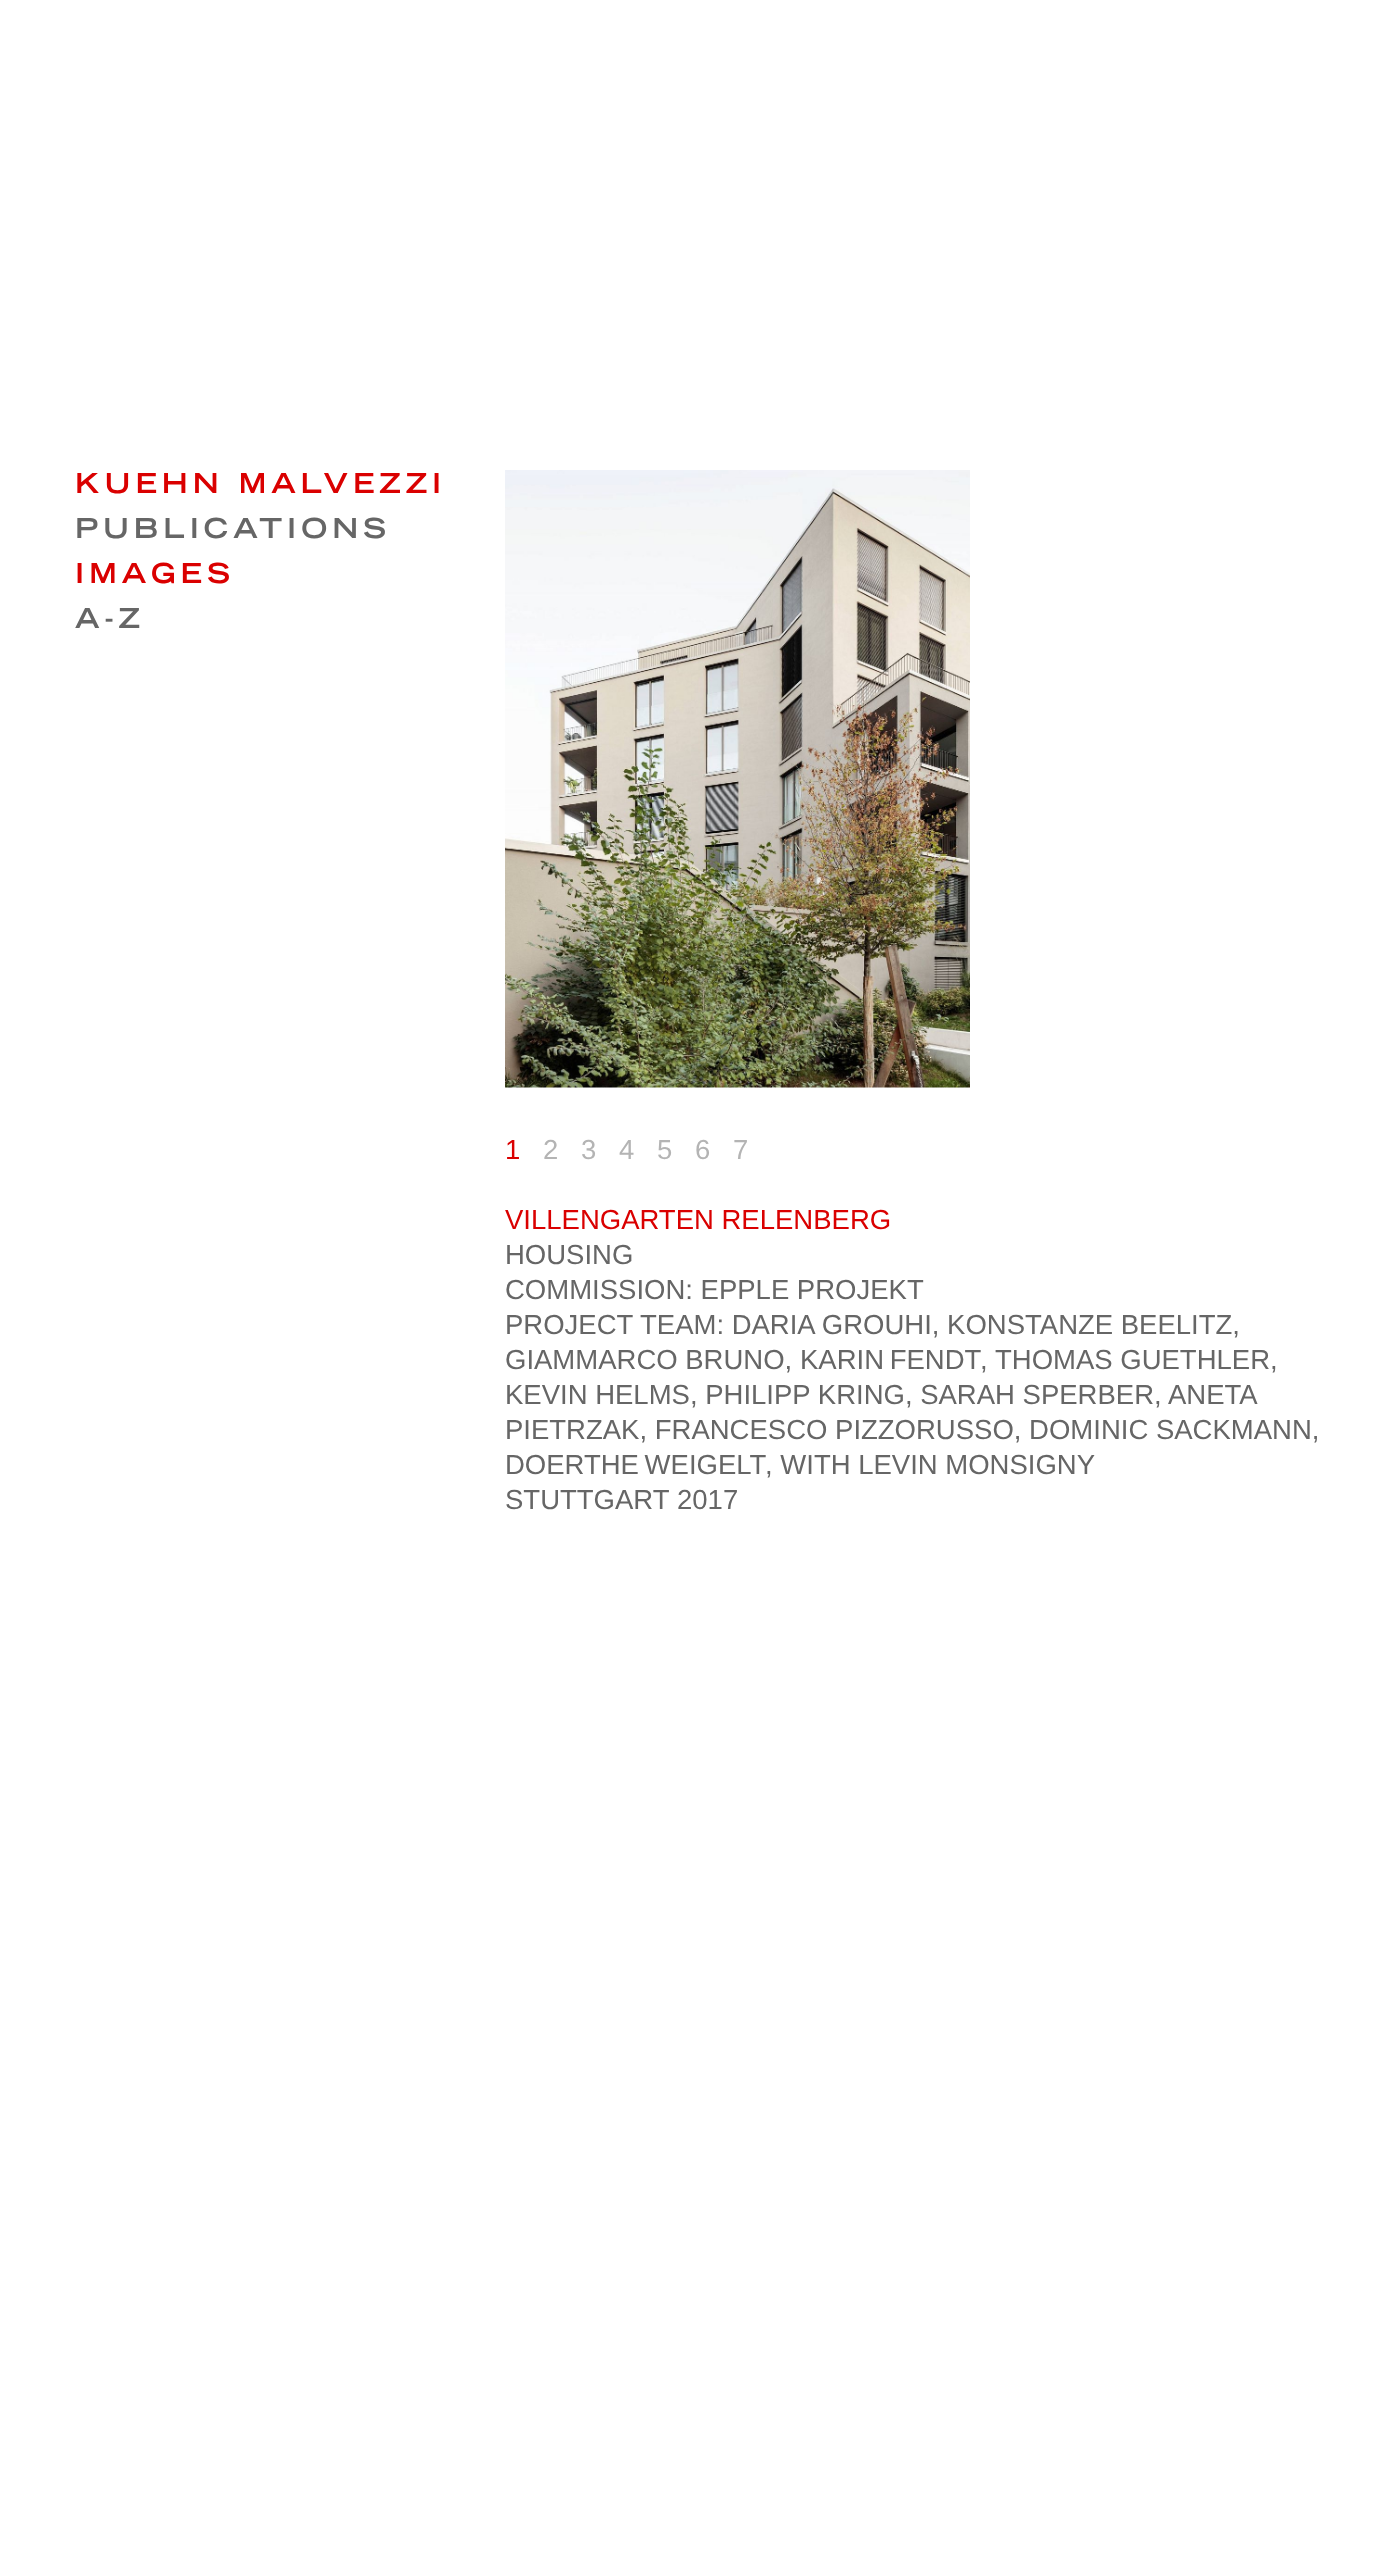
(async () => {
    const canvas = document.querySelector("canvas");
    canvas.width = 1399;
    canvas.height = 2573;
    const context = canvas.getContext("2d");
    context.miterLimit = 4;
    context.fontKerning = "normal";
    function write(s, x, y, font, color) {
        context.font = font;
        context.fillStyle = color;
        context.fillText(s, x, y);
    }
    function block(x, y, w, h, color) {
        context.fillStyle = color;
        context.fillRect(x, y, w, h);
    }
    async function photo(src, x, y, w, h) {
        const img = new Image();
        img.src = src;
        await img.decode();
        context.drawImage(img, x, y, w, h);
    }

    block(0, 0, 1399, 2573, "rgb(255, 255, 255)");
    context.letterSpacing = "5px";
    write("KUEHN MALVEZZI", 75, 493, "bold 27.5px 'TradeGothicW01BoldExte'", "rgb(218, 0, 0)");
    write("PUBLICATIONS", 75, 538, "bold 27.5px 'TradeGothicW01BoldExte'", "rgb(102, 102, 102)");
    write("IMAGES", 75, 583, "bold 27.5px 'TradeGothicW01BoldExte'", "rgb(218, 0, 0)");
    write("A-Z", 75, 628, "bold 27.5px 'TradeGothicW01BoldExte'", "rgb(102, 102, 102)");
    await photo("media/1.png", 505, 470, 465, 618);
    context.letterSpacing = "0px";
    write("1", 505, 1159, "27.5px Liberation Sans", "rgb(218, 0, 0)");
    write("2", 543, 1159, "27.5px Liberation Sans", "rgb(180, 180, 180)");
    write("3", 581, 1159, "27.5px Liberation Sans", "rgb(180, 180, 180)");
    write("4", 619, 1159, "27.5px Liberation Sans", "rgb(180, 180, 180)");
    write("5", 657, 1159, "27.5px Liberation Sans", "rgb(180, 180, 180)");
    write("6", 695, 1159, "27.5px Liberation Sans", "rgb(180, 180, 180)");
    write("7", 733, 1159, "27.5px Liberation Sans", "rgb(180, 180, 180)");
    write("VILLENGARTEN RELENBERG", 505, 1229, "27.5px Liberation Sans", "rgb(218, 0, 0)");
    write("HOUSING", 505, 1264, "27.5px Liberation Sans", "rgb(102, 102, 102)");
    write("COMMISSION: EPPLE PROJEKT", 505, 1299, "27.5px Liberation Sans", "rgb(102, 102, 102)");
    write("PROJECT TEAM: DARIA GROUHI, KONSTANZE BEELITZ,", 505, 1334, "27.5px Liberation Sans", "rgb(102, 102, 102)");
    write("GIAMMARCO BRUNO,", 505, 1369, "27.5px Liberation Sans", "rgb(102, 102, 102)");
    context.wordSpacing = "-2px";
    write("KARIN FENDT", 800, 1369, "27.5px Liberation Sans", "rgb(102, 102, 102)");
    context.wordSpacing = "0px";
    write(",", 980, 1369, "27.5px Liberation Sans", "rgb(102, 102, 102)");
    write("THOMAS GUETHLER,", 995, 1369, "27.5px Liberation Sans", "rgb(102, 102, 102)");
    write("KEVIN HELMS, PHILIPP KRING, SARAH SPERBER,", 505, 1404, "27.5px Liberation Sans", "rgb(102, 102, 102)");
    write("ANETA", 1168, 1404, "27.5px Liberation Sans", "rgb(102, 102, 102)");
    write("PIETRZAK, FRANCESCO PIZZORUSSO, DOMINIC SACKMANN,", 505, 1439, "27.5px Liberation Sans", "rgb(102, 102, 102)");
    context.wordSpacing = "-2px";
    write("DOERTHE WEIGELT", 505, 1474, "27.5px Liberation Sans", "rgb(102, 102, 102)");
    context.wordSpacing = "0px";
    write(", WITH LEVIN MONSIGNY", 765, 1474, "27.5px Liberation Sans", "rgb(102, 102, 102)");
    write("STUTTGART", 505, 1509, "27.5px Liberation Sans", "rgb(102, 102, 102)");
    write("2017", 677, 1509, "27.5px Liberation Sans", "rgb(102, 102, 102)");
})();
